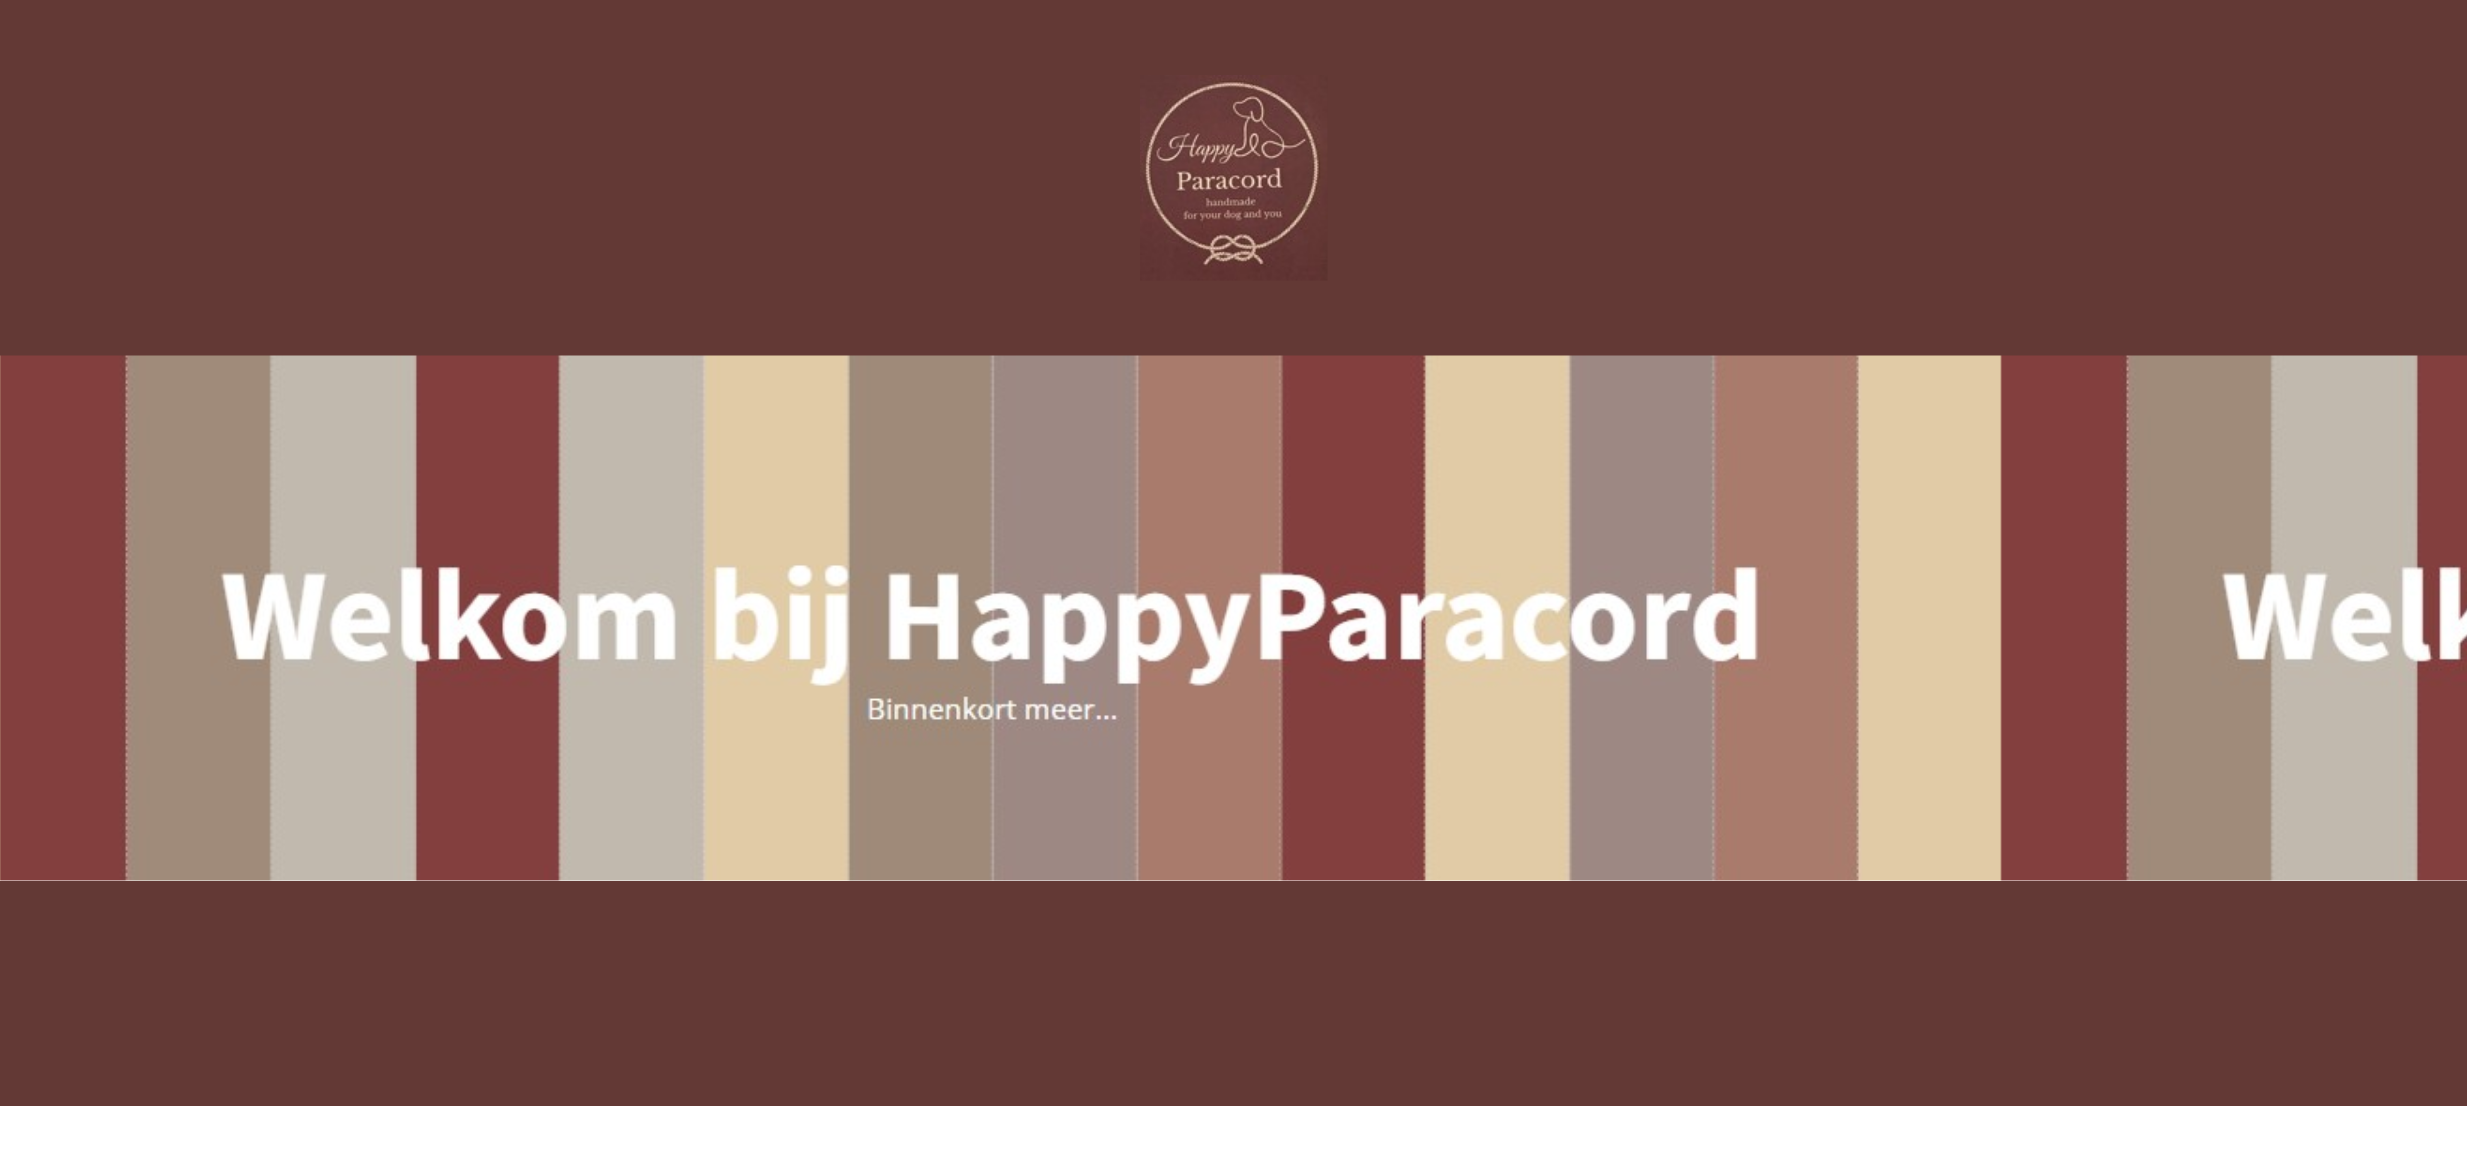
(async () => {
    const canvas = document.querySelector("canvas");
    canvas.width = 2467;
    canvas.height = 1152;
    const context = canvas.getContext("2d");
    context.miterLimit = 4;
    context.fontKerning = "normal";
    function block(x, y, w, h, color) {
        context.fillStyle = color;
        context.fillRect(x, y, w, h);
    }
    async function photo(src, x, y, w, h) {
        const img = new Image();
        img.src = src;
        await img.decode();
        context.drawImage(img, x, y, w, h);
    }

    block(0, 0, 2467, 1152, "rgb(255, 255, 255)");
    block(0, 0, 2467, 356, "rgb(99, 57, 53)");
    await photo("media/1.png", 1140, 75, 188, 206);
    await photo("media/2.png", 0, 355, 2467, 526);
    block(0, 881, 2467, 225, "rgb(99, 57, 53)");
})();
